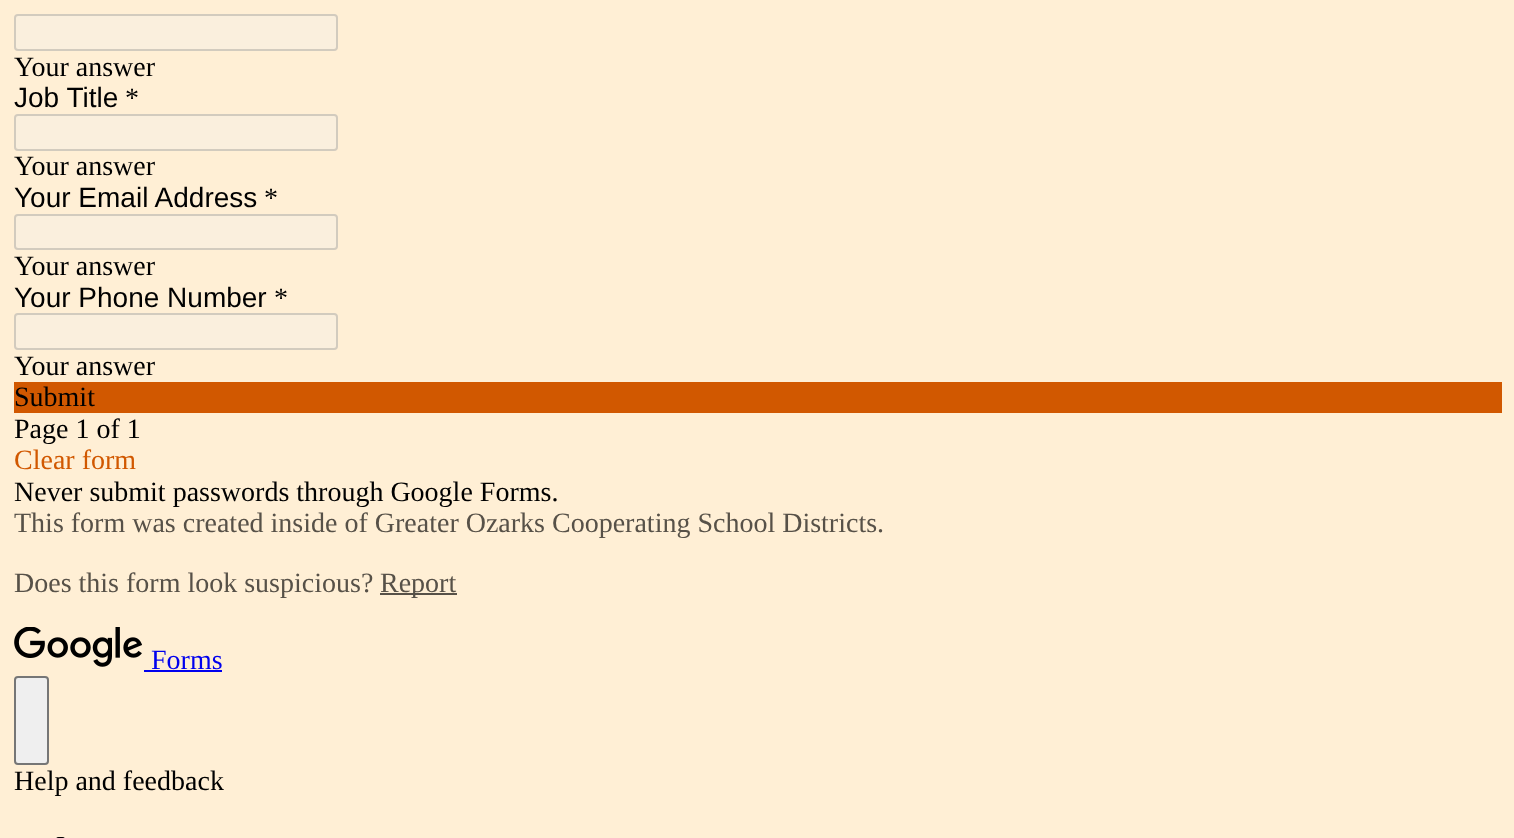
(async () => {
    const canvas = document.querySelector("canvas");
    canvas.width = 1514;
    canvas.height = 838;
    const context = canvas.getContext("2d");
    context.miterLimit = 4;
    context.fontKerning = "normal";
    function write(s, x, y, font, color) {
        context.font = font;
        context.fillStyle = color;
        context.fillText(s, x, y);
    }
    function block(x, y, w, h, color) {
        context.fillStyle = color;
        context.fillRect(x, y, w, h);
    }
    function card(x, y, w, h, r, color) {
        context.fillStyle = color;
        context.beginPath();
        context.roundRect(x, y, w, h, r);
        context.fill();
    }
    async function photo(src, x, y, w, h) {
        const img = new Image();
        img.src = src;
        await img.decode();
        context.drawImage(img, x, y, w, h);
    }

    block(0, 0, 1514, 838, "rgb(255, 239, 213)");
    card(14, 14, 324, 37, 4, "rgb(250, 239, 221)");
    context.beginPath();
    context.roundRect(15, 15, 322, 35, 3);
    context.strokeStyle = "rgba(118, 118, 118, 0.3)";
    context.lineWidth = 2;
    context.stroke();
    write("Your answer", 14, 76, "28px Liberation Serif", "rgb(0, 0, 0)");
    write("Job Title", 14, 107, "28px Liberation Sans", "rgb(0, 0, 0)");
    write("*", 125, 107, "28px Liberation Serif", "rgb(0, 0, 0)");
    card(14, 114, 324, 37, 4, "rgb(250, 239, 221)");
    context.beginPath();
    context.roundRect(15, 115, 322, 35, 3);
    context.stroke();
    write("Your answer", 14, 175, "28px Liberation Serif", "rgb(0, 0, 0)");
    write("Your Email Address", 14, 207, "28px Liberation Sans", "rgb(0, 0, 0)");
    write("*", 264, 207, "28px Liberation Serif", "rgb(0, 0, 0)");
    card(14, 214, 324, 36, 4, "rgb(250, 239, 221)");
    context.beginPath();
    context.roundRect(15, 215, 322, 34, 3);
    context.stroke();
    write("Your answer", 14, 275, "28px Liberation Serif", "rgb(0, 0, 0)");
    write("Your Phone Number", 14, 307, "28px Liberation Sans", "rgb(0, 0, 0)");
    write("*", 274, 307, "28px Liberation Serif", "rgb(0, 0, 0)");
    card(14, 313, 324, 37, 4, "rgb(250, 239, 221)");
    context.beginPath();
    context.roundRect(15, 314, 322, 35, 3);
    context.stroke();
    write("Your answer", 14, 375, "28px Liberation Serif", "rgb(0, 0, 0)");
    block(14, 382, 1488, 31, "rgb(209, 88, 0)");
    write("Submit", 14, 406, "28px Liberation Serif", "rgb(0, 0, 0)");
    write("Page 1 of 1", 14, 438, "28px Liberation Serif", "rgb(0, 0, 0)");
    write("Clear form", 14, 469, "28px Liberation Serif", "rgb(209, 88, 0)");
    write("Never submit passwords through Google Forms.", 14, 501, "28px Liberation Serif", "rgb(0, 0, 0)");
    write("This form was created inside of Greater Ozarks Cooperating School Districts.", 14, 532, "28px Liberation Serif", "rgb(87, 81, 72)");
    write("Does this form look suspicious?", 14, 592, "28px Liberation Serif", "rgb(87, 81, 72)");
    block(380, 593, 77, 2, "rgb(87, 81, 72)");
    write("Report", 380, 592, "28px Liberation Serif", "rgb(87, 81, 72)");
    await photo("media/1.png", 14, 627, 128, 40);
    write("Forms", 151, 669, "28px Liberation Serif", "rgb(0, 0, 238)");
    block(144, 670, 78, 2, "rgb(0, 0, 238)");
    context.fillStyle = "rgb(239, 239, 239)";
    context.beginPath();
    context.roundRect(15, 677, 33, 87, 3);
    context.fill();
    context.strokeStyle = "rgb(118, 118, 118)";
    context.stroke();
    write("Help and feedback", 14, 790, "28px Liberation Serif", "rgb(0, 0, 0)");
    card(56, 837, 9, 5, 4, "rgb(0, 0, 0)");
})();
